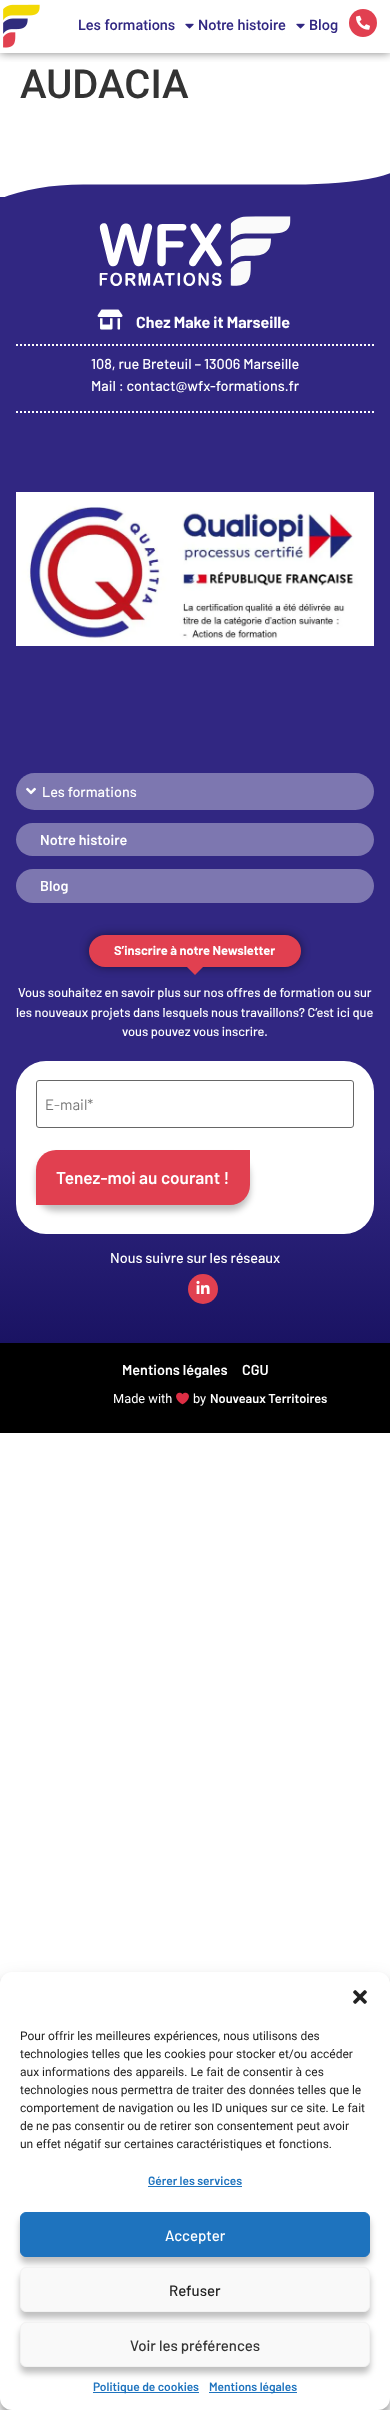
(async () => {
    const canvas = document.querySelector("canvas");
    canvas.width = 390;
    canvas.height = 2410;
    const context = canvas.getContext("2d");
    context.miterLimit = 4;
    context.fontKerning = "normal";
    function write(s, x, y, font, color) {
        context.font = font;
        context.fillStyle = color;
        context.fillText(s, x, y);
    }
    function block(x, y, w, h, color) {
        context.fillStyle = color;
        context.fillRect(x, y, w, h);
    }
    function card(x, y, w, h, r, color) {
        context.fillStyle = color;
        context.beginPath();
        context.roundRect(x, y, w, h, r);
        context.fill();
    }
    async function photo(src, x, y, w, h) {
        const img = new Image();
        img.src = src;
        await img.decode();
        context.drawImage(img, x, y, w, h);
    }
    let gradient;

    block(0, 0, 390, 2410, "rgb(255, 255, 255)");
    context.save();
    context.beginPath();
    context.rect(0, 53, 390, 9);
    context.clip();
    context.fillStyle = "rgba(0, 0, 0, 0.5)";
    context.filter = "blur(5px)";
    context.beginPath();
    context.rect(0, 0, 390, 53);
    context.fill();
    context.filter = "none";
    context.restore();
    await photo("media/1.png", 3, 4, 37, 44);
    write("Les formations", 78, 30, "500 14.4px Roboto", "rgb(49, 39, 130)");
    await photo("media/2.png", 185, 23, 9, 6);
    write("Notre histoire", 198, 30, "500 14.4px Roboto", "rgb(49, 39, 130)");
    await photo("media/2.png", 296, 23, 9, 6);
    write("Blog", 309, 30, "500 14.4px Roboto", "rgb(49, 39, 130)");
    context.fillStyle = "rgb(225, 64, 80)";
    context.beginPath();
    context.arc(363, 23, 14, 0, Math.PI * 2);
    context.fill();
    await photo("media/3.png", 356, 15, 14, 15);
    write("AUDACIA", 20, 98, "500 40px Roboto", "rgb(51, 51, 51)");
    await photo("media/4.png", 5, 173, 385, 24);
    gradient = context.createLinearGradient(195, 197, 195, 1343);
    gradient.addColorStop(0.83, "rgb(49, 39, 130)");
    gradient.addColorStop(1, "rgb(26, 19, 99)");
    context.fillStyle = gradient;
    context.fillRect(0, 197, 390, 1146);
    await photo("media/5.png", 99, 216, 192, 70);
    await photo("media/6.png", 97, 309, 26, 21);
    write("Chez Make it Marseille", 136, 328, "bold 16px Barlow", "rgb(255, 255, 255)");
    context.beginPath();
    context.moveTo(16, 345);
    context.lineTo(374, 345);
    context.strokeStyle = "rgb(255, 255, 255)";
    context.lineWidth = 2;
    context.setLineDash([2, 2]);
    context.stroke();
    context.beginPath();
    context.moveTo(16, 412);
    context.lineTo(374, 412);
    context.stroke();
    write("108, rue Breteuil – 13006 Marseille", 91, 369, "500 14.4px Barlow", "rgb(255, 255, 255)");
    write("Mail : contact@wfx-formations.fr", 91, 391, "500 14.4px Barlow", "rgb(255, 255, 255)");
    await photo("media/7.png", 16, 492, 358, 154);
    card(16, 773, 358, 37, 18.5, "rgb(125, 119, 176)");
    await photo("media/8.png", 26, 787, 10, 8);
    write("Les formations", 42, 797, "500 14.4px Barlow", "rgb(255, 255, 255)");
    card(16, 823, 358, 33, 16.5, "rgb(125, 119, 176)");
    write("Notre histoire", 40, 845, "600 14.4px Barlow", "rgb(255, 255, 255)");
    card(16, 869, 358, 34, 17, "rgb(125, 119, 176)");
    write("Blog", 40, 891, "600 14.4px Barlow", "rgb(255, 255, 255)");
    context.fillStyle = "rgba(0, 0, 0, 0.5)";
    context.filter = "blur(5px)";
    context.beginPath();
    context.roundRect(89, 935, 212, 32, 16);
    context.fill();
    context.filter = "none";
    card(89, 935, 212, 32, 16, "rgb(225, 64, 80)");
    write("S’inscrire à notre Newsletter", 114, 955, "bold 12.8px Barlow", "rgb(255, 255, 255)");
    context.fillStyle = "rgb(225, 64, 80)";
    context.beginPath();
    context.moveTo(195, 975);
    context.lineTo(184.5, 964.5);
    context.lineTo(195, 953.5);
    context.lineTo(205.5, 964.5);
    context.closePath();
    context.fill();
    write("Vous souhaitez en savoir plus sur nos offres de formation ou sur", 18, 997, "500 12.8px Barlow", "rgb(255, 255, 255)");
    write("les nouveaux projets dans lesquels nous travaillons? C’est ici que", 16, 1017, "500 12.8px Barlow", "rgb(255, 255, 255)");
    write("vous pouvez vous inscrire.", 122, 1036, "500 12.8px Barlow", "rgb(255, 255, 255)");
    card(16, 1061, 358, 173, 30, "rgb(255, 255, 255)");
    context.beginPath();
    context.roundRect(36.5, 1080.5, 317, 47, 2.5);
    context.strokeStyle = "rgb(102, 102, 102)";
    context.lineWidth = 1;
    context.setLineDash([]);
    context.stroke();
    write("E-mail*", 45, 1110, "15px Barlow", "rgb(117, 117, 117)");
    context.fillStyle = "rgba(0, 0, 0, 0.25)";
    context.filter = "blur(3px)";
    context.beginPath();
    context.roundRect(36, 1156, 214, 55, 20);
    context.fill();
    context.filter = "none";
    context.fillStyle = "rgb(225, 64, 80)";
    context.beginPath();
    context.roundRect(36, 1150, 214, 55, [20, 0, 20, 0]);
    context.fill();
    write("Tenez-moi au courant !", 56, 1184, "600 17.25px Barlow", "rgb(255, 255, 255)");
    write("Nous suivre sur les réseaux", 110, 1263, "500 14.4px Barlow", "rgb(255, 255, 255)");
    context.fillStyle = "rgb(225, 64, 80)";
    context.beginPath();
    context.arc(203, 1289, 15, 0, Math.PI * 2);
    context.fill();
    await photo("media/9.png", 196, 1280, 14, 14);
    block(0, 1343, 390, 90, "rgb(0, 0, 0)");
    write("Mentions légales", 122, 1375, "600 14.4px Barlow", "rgb(255, 255, 255)");
    write("CGU", 242, 1375, "600 14.4px Barlow", "rgb(255, 255, 255)");
    write("Made with", 113, 1403, "12.8px Roboto", "rgb(255, 255, 255)");
    await photo("media/10.png", 176, 1392, 13, 13);
    write("by", 193, 1403, "12.8px Roboto", "rgb(255, 255, 255)");
    write("Nouveaux Territoires", 210, 1403, "600 12.8px Barlow", "rgb(255, 255, 255)");
    context.fillStyle = "rgba(0, 0, 0, 0.23)";
    context.filter = "blur(3px)";
    context.beginPath();
    context.roundRect(0, 1978, 390, 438, 12);
    context.fill();
    context.filter = "none";
    context.fillStyle = "rgba(0, 0, 0, 0.19)";
    context.filter = "blur(10px)";
    context.beginPath();
    context.roundRect(0, 1982, 390, 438, 12);
    context.fill();
    context.filter = "none";
    card(0, 1972, 390, 438, 12, "rgb(255, 255, 255)");
    await photo("media/11.png", 353, 1990, 14, 14);
    write("Pour offrir les meilleures expériences, nous utilisons des", 20, 2040, "12px Roboto", "rgb(34, 34, 34)");
    write("technologies telles que les cookies pour stocker et/ou accéder", 20, 2058, "12px Roboto", "rgb(34, 34, 34)");
    write("aux informations des appareils. Le fait de consentir à ces", 20, 2076, "12px Roboto", "rgb(34, 34, 34)");
    write("technologies nous permettra de traiter des données telles que le", 20, 2094, "12px Roboto", "rgb(34, 34, 34)");
    write("comportement de navigation ou les ID uniques sur ce site. Le fait", 20, 2112, "12px Roboto", "rgb(34, 34, 34)");
    write("de ne pas consentir ou de retirer son consentement peut avoir", 20, 2130, "12px Roboto", "rgb(34, 34, 34)");
    write("un effet négatif sur certaines caractéristiques et fonctions.", 20, 2148, "12px Roboto", "rgb(34, 34, 34)");
    write("Gérer les services", 148, 2185, "600 12px Barlow", "rgb(30, 115, 190)");
    block(148, 2186, 94, 1, "rgb(30, 115, 190)");
    context.fillStyle = "rgba(0, 0, 0, 0.25)";
    context.filter = "blur(3px)";
    context.beginPath();
    context.roundRect(20, 2218, 350, 45, 6);
    context.fill();
    context.filter = "none";
    context.fillStyle = "rgb(30, 115, 190)";
    context.beginPath();
    context.roundRect(20.5, 2212.5, 349, 44, 5.5);
    context.fill();
    context.strokeStyle = "rgb(30, 115, 190)";
    context.stroke();
    write("Accepter", 165, 2241, "500 15px Barlow", "rgb(255, 255, 255)");
    context.fillStyle = "rgba(0, 0, 0, 0.25)";
    context.filter = "blur(3px)";
    context.beginPath();
    context.roundRect(20, 2273, 350, 45, 6);
    context.fill();
    context.filter = "none";
    context.fillStyle = "rgb(249, 249, 249)";
    context.beginPath();
    context.roundRect(20.5, 2267.5, 349, 44, 5.5);
    context.fill();
    context.strokeStyle = "rgb(242, 242, 242)";
    context.stroke();
    write("Refuser", 169, 2296, "500 15px Barlow", "rgb(34, 34, 34)");
    context.fillStyle = "rgba(0, 0, 0, 0.25)";
    context.filter = "blur(3px)";
    context.beginPath();
    context.roundRect(20, 2328, 350, 45, 6);
    context.fill();
    context.filter = "none";
    context.fillStyle = "rgb(249, 249, 249)";
    context.beginPath();
    context.roundRect(20.5, 2322.5, 349, 44, 5.5);
    context.fill();
    context.stroke();
    write("Voir les préférences", 130, 2351, "500 15px Barlow", "rgb(51, 51, 51)");
    block(93, 2392, 106, 1, "rgb(30, 115, 190)");
    write("Politique de cookies", 93, 2391, "600 12px Barlow", "rgb(30, 115, 190)");
    block(209, 2392, 88, 1, "rgb(30, 115, 190)");
    write("Mentions légales", 209, 2391, "600 12px Barlow", "rgb(30, 115, 190)");
})();
